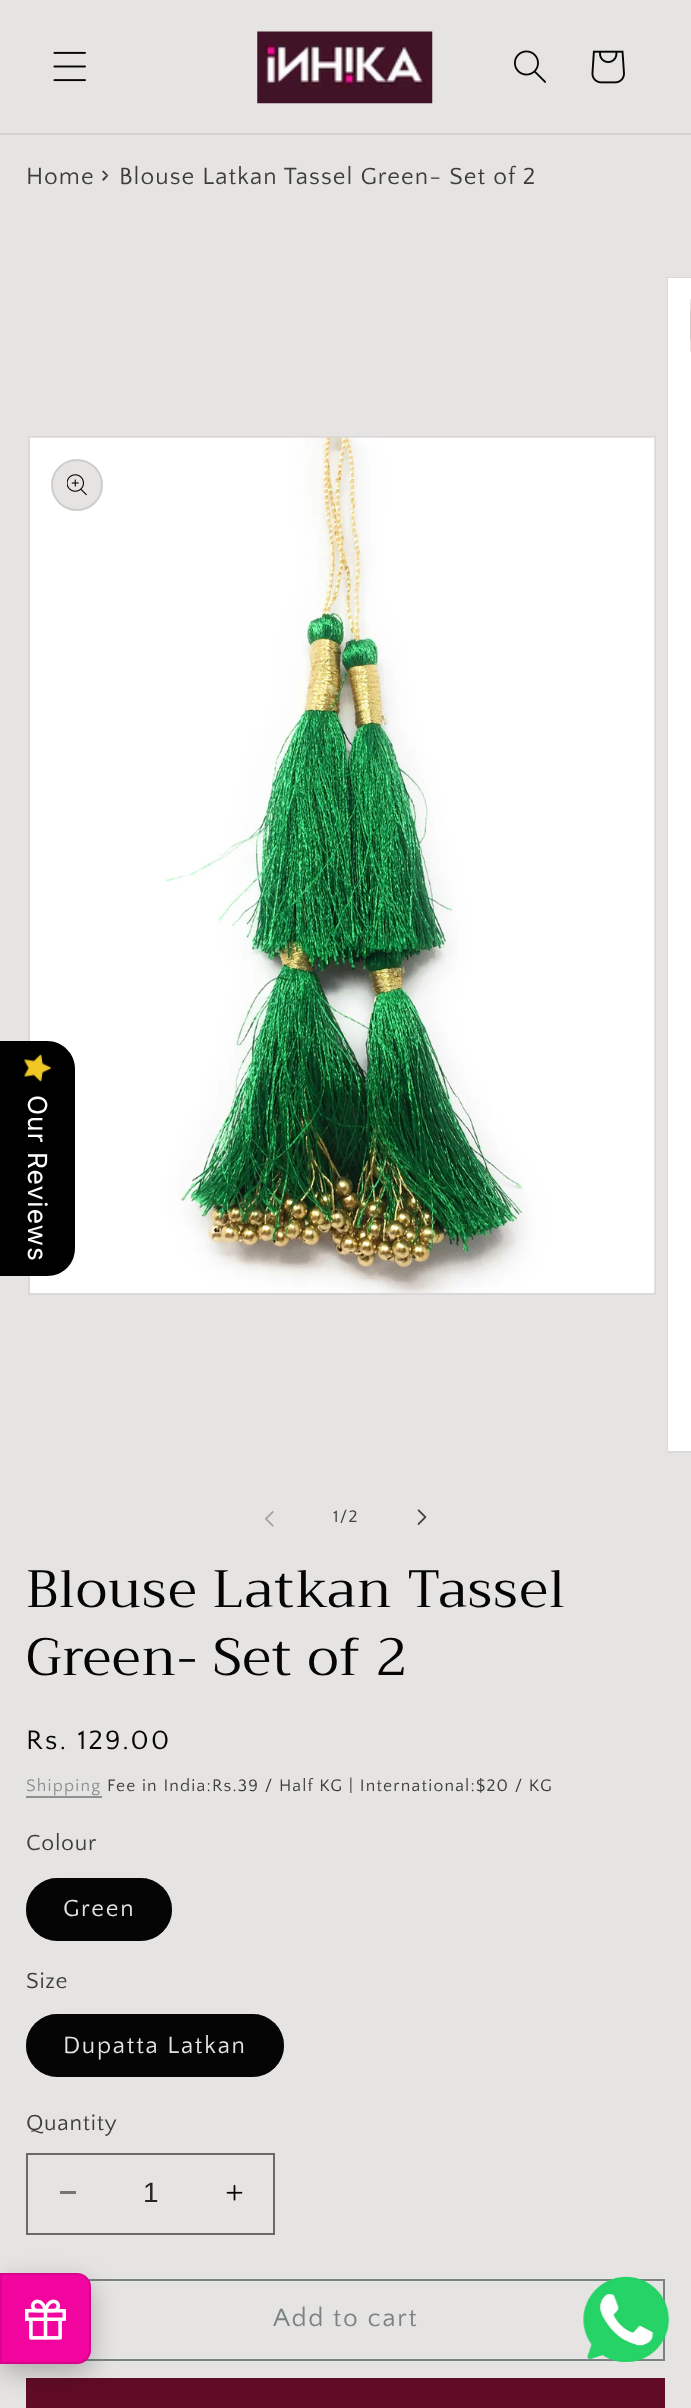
(async () => {
    const canvas = document.querySelector("canvas");
    canvas.width = 691;
    canvas.height = 2408;
    const context = canvas.getContext("2d");
    context.miterLimit = 4;
    context.fontKerning = "normal";
    function write(s, x, y, font, color) {
        context.font = font;
        context.fillStyle = color;
        context.fillText(s, x, y);
    }
    function block(x, y, w, h, color) {
        context.fillStyle = color;
        context.fillRect(x, y, w, h);
    }
    function card(x, y, w, h, r, color) {
        context.fillStyle = color;
        context.beginPath();
        context.roundRect(x, y, w, h, r);
        context.fill();
    }
    async function photo(src, x, y, w, h) {
        const img = new Image();
        img.src = src;
        await img.decode();
        context.drawImage(img, x, y, w, h);
    }

    block(0, 0, 691, 2408, "rgb(229, 228, 226)");
    block(0, 133, 691, 2, "rgb(211, 210, 208)");
    await photo("media/1.png", 53, 51, 33, 31);
    await photo("media/2.png", 257, 31, 176, 73);
    await photo("media/3.png", 514, 50, 32, 33);
    await photo("media/4.png", 591, 50, 34, 34);
    context.letterSpacing = "1.05px";
    write("Home", 26, 184, "24.5px Quattrocento Sans", "rgb(61, 61, 60)");
    context.beginPath();
    context.moveTo(103.5, 170.5);
    context.lineTo(108.5, 175.5);
    context.lineTo(106, 175.5);
    context.lineTo(102, 171.5);
    context.closePath();
    context.fill();
    context.beginPath();
    context.moveTo(108.5, 175.5);
    context.lineTo(103.5, 181);
    context.lineTo(102, 179.5);
    context.lineTo(106, 175.5);
    context.closePath();
    context.fill();
    write("Blouse Latkan Tassel Green- Set of 2", 119, 184, "24.5px Quattrocento Sans", "rgb(61, 61, 60)");
    context.strokeStyle = "rgb(218, 217, 215)";
    context.lineWidth = 2;
    context.strokeRect(29, 437, 626, 857);
    await photo("media/6.png", 30, 437, 625, 856);
    context.fillStyle = "rgb(0, 0, 0)";
    context.beginPath();
    context.moveTo(75, 1069);
    context.lineTo(75, 1248);
    context.bezierCurveTo(75, 1264, 63, 1276, 47, 1276);
    context.lineTo(0, 1276);
    context.lineTo(0, 1041);
    context.lineTo(47, 1041);
    context.bezierCurveTo(63, 1041, 75, 1054, 75, 1069);
    context.closePath();
    context.fill();
    await photo("media/5.png", 24, 1054, 27, 28);
    context.font = "26.25px Inter";
    context.fillStyle = "rgb(255, 255, 255)";
    context.save();
    context.translate(28, 1095);
    context.rotate(90 * Math.PI / 180);
    context.fillText("Our Reviews", 0, 0);
    context.restore();
    context.fillStyle = "rgb(229, 228, 226)";
    context.beginPath();
    context.arc(77, 485, 26, 0, Math.PI * 2);
    context.fill();
    context.beginPath();
    context.arc(77, 485, 25, 0, Math.PI * 2);
    context.strokeStyle = "rgba(5, 5, 5, 0.1)";
    context.stroke();
    await photo("media/7.png", 67, 474, 20, 22);
    context.strokeStyle = "rgb(218, 217, 215)";
    context.strokeRect(668, 278, 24, 1174);
    block(668, 278, 23, 1173, "rgb(255, 255, 255)");
    context.fillStyle = "rgb(229, 228, 226)";
    context.beginPath();
    context.roundRect(690, 299, 1, 53, [26, 0, 0, 26]);
    context.fill();
    context.beginPath();
    context.roundRect(691, 300, 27, 51, 25);
    context.strokeStyle = "rgba(5, 5, 5, 0.1)";
    context.stroke();
    await photo("media/8.png", 265, 1511, 9, 16);
    context.letterSpacing = "1.22px";
    write("1/2", 333, 1522, "17.5px Quattrocento Sans", "rgb(61, 61, 60)");
    await photo("media/9.png", 417, 1509, 10, 16);
    context.letterSpacing = "1.05px";
    write("Blouse Latkan Tassel", 26, 1607, "52.5px Trirong", "rgb(5, 5, 5)");
    write("Green- Set of 2", 26, 1675, "52.5px Trirong", "rgb(5, 5, 5)");
    context.letterSpacing = "2.25px";
    write("Rs. 129.00", 26, 1749, "28px Quattrocento Sans", "rgb(5, 5, 5)");
    context.letterSpacing = "1.22px";
    write("Shipping", 26, 1791, "17.5px Quattrocento Sans", "rgb(139, 146, 144)");
    block(26, 1796, 76, 2, "rgb(139, 146, 144)");
    write("Fee in India:Rs.39 / Half KG | International:$20 / KG", 107, 1791, "17.5px Quattrocento Sans", "rgb(61, 61, 60)");
    context.letterSpacing = "0.75px";
    write("Colour", 26, 1850, "23px Quattrocento Sans", "rgb(61, 61, 60)");
    card(26, 1878, 146, 63, 31.5, "rgb(5, 5, 5)");
    context.beginPath();
    context.roundRect(27, 1879, 144, 61, 30.5);
    context.strokeStyle = "rgba(5, 5, 5, 0.55)";
    context.stroke();
    context.letterSpacing = "1.75px";
    write("Green", 63, 1916, "24.5px Quattrocento Sans", "rgb(229, 228, 226)");
    context.letterSpacing = "0.75px";
    write("Size", 26, 1988, "23px Quattrocento Sans", "rgb(61, 61, 60)");
    card(26, 2014, 258, 63, 31.5, "rgb(5, 5, 5)");
    context.beginPath();
    context.roundRect(27, 2015, 256, 61, 30.5);
    context.stroke();
    context.letterSpacing = "1.75px";
    write("Dupatta Latkan", 63, 2053, "24.5px Quattrocento Sans", "rgb(229, 228, 226)");
    context.letterSpacing = "0.75px";
    write("Quantity", 26, 2130, "23px Quattrocento Sans", "rgb(61, 61, 60)");
    block(60, 2191, 16, 3, "rgb(117, 117, 116)");
    await photo("media/10.png", 226, 2184, 17, 17);
    context.strokeStyle = "rgb(106, 105, 104)";
    context.strokeRect(27, 2154, 247, 80);
    context.letterSpacing = "0px";
    write("1", 143, 2202, "28px Liberation Sans", "rgb(39, 38, 38)");
    context.strokeStyle = "rgb(123, 131, 130)";
    context.strokeRect(27, 2280, 637, 80);
    context.letterSpacing = "1.75px";
    write("Add to cart", 273, 2326, "26.25px Quattrocento Sans", "rgb(123, 131, 130)");
    block(26, 2378, 639, 30, "rgb(97, 12, 39)");
    context.fillStyle = "rgba(0, 0, 0, 0.25)";
    context.filter = "blur(13px)";
    context.beginPath();
    context.roundRect(0, 2282, 91, 91, 14);
    context.fill();
    context.filter = "none";
    context.fillStyle = "rgb(242, 4, 159)";
    context.beginPath();
    context.roundRect(0, 2273, 91, 91, [0, 14, 14, 0]);
    context.fill();
    context.beginPath();
    context.roundRect(1, 2274, 89, 89, [0, 13, 13, 0]);
    context.strokeStyle = "rgba(0, 0, 0, 0.1)";
    context.stroke();
    await photo("media/11.png", 25, 2299, 41, 41);
    await photo("media/12.png", 583, 2276, 87, 86);
})();
